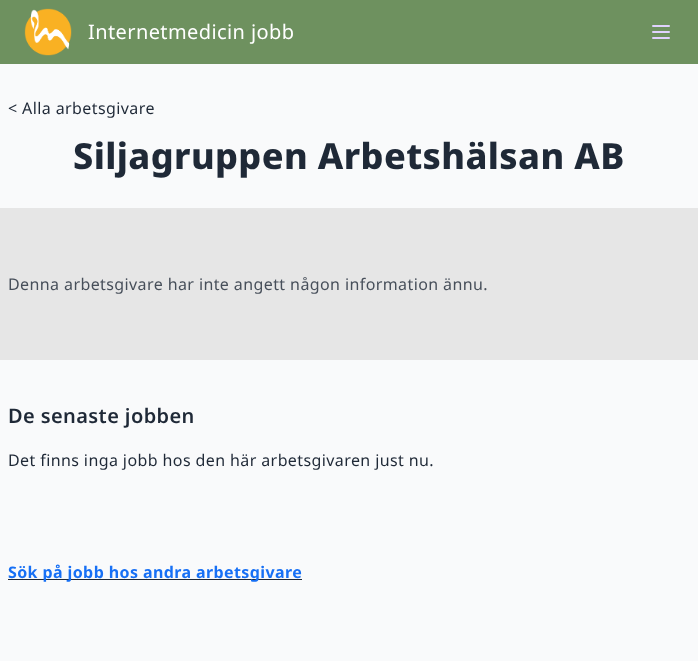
(async () => {
    const canvas = document.querySelector("canvas");
    canvas.width = 698;
    canvas.height = 661;
    const context = canvas.getContext("2d");
    context.miterLimit = 4;
    context.fontKerning = "normal";
    function write(s, x, y, font, color) {
        context.font = font;
        context.fillStyle = color;
        context.fillText(s, x, y);
    }
    function block(x, y, w, h, color) {
        context.fillStyle = color;
        context.fillRect(x, y, w, h);
    }
    async function photo(src, x, y, w, h) {
        const img = new Image();
        img.src = src;
        await img.decode();
        context.drawImage(img, x, y, w, h);
    }

    block(0, 0, 698, 661, "rgb(249, 250, 251)");
    block(0, 0, 698, 64, "rgb(110, 145, 95)");
    await photo("media/1.png", 24, 8, 48, 48);
    context.letterSpacing = "0.4px";
    write("Internetmedicin jobb", 88, 39, "20px Noto Sans", "rgb(255, 255, 255)");
    context.beginPath();
    context.moveTo(653, 26);
    context.lineTo(669, 26);
    context.moveTo(653, 32);
    context.lineTo(669, 32);
    context.moveTo(653, 38);
    context.lineTo(669, 38);
    context.strokeStyle = "rgb(224, 210, 254)";
    context.lineWidth = 2;
    context.lineCap = "round";
    context.lineJoin = "round";
    context.stroke();
    write("< Alla arbetsgivare", 8, 114, "16px Noto Sans", "rgb(31, 41, 55)");
    write("Siljagruppen Arbetshälsan AB", 73, 169, "800 36px Noto Sans", "rgb(31, 41, 55)");
    block(0, 208, 698, 152, "rgb(230, 230, 230)");
    write("Denna arbetsgivare har inte angett någon information ännu.", 8, 290, "16px Noto Sans", "rgb(71, 79, 90)");
    write("De senaste jobben", 8, 423, "600 20px Noto Sans", "rgb(31, 41, 55)");
    write("Det finns inga jobb hos den här arbetsgivaren just nu.", 8, 466, "16px Noto Sans", "rgb(31, 41, 55)");
    block(8, 579, 294, 1, "rgb(31, 41, 55)");
    write("Sök på jobb hos andra arbetsgivare", 8, 578, "bold 16px Noto Sans", "rgb(23, 112, 245)");
})();
